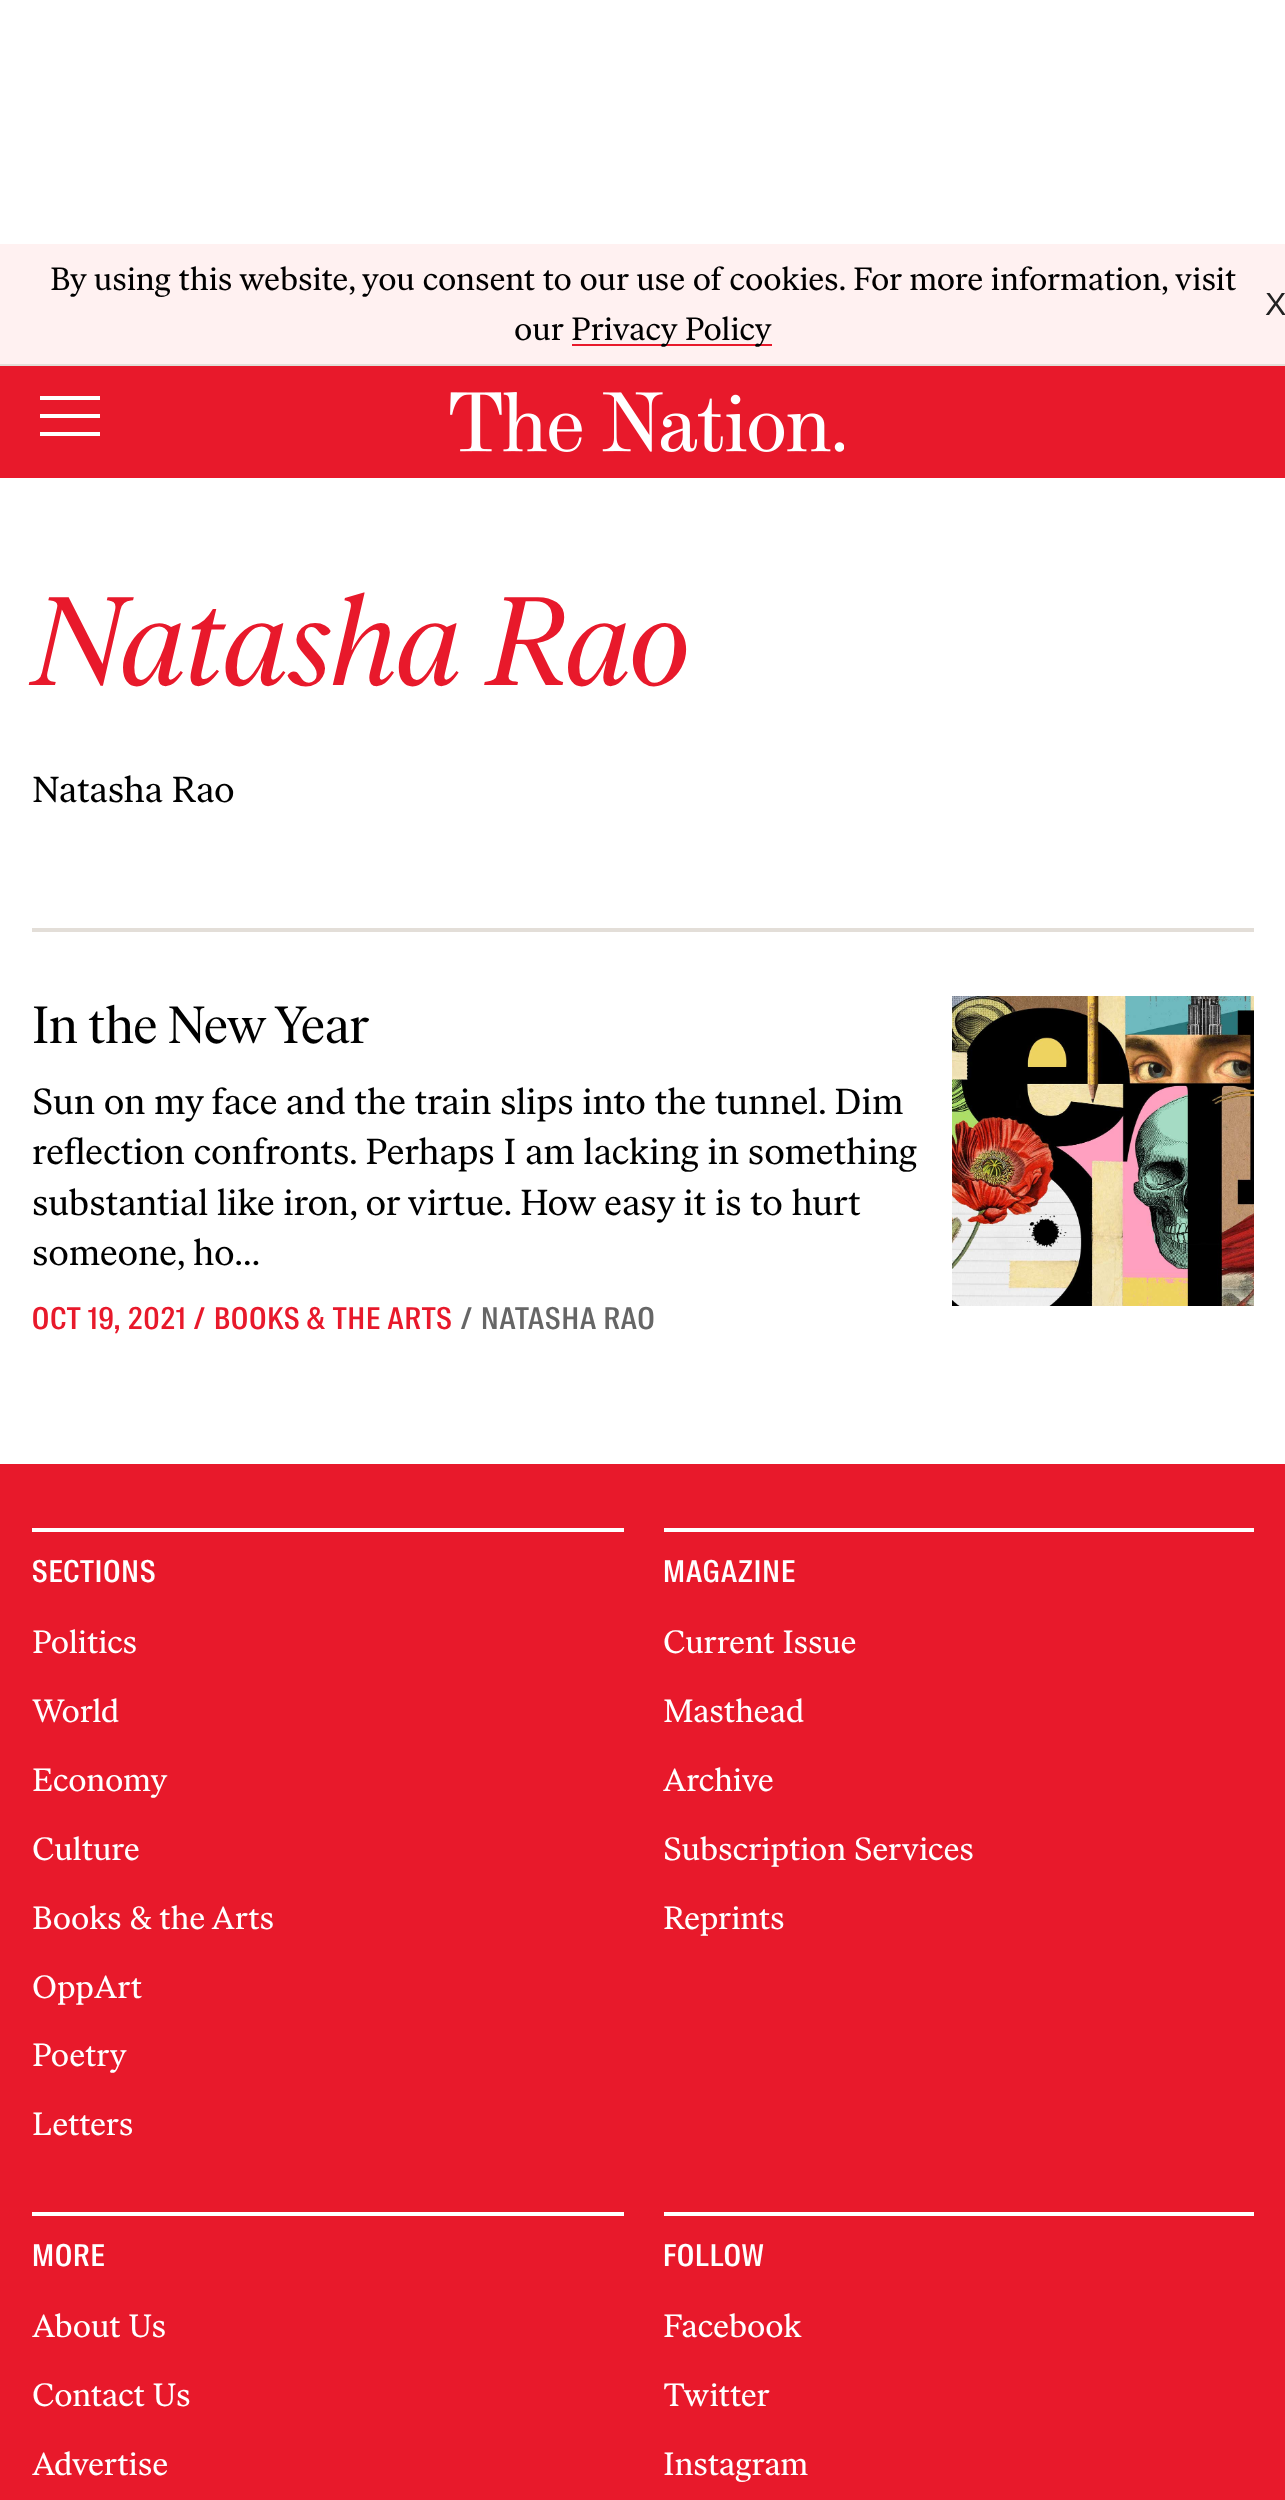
(async () => {
    const canvas = document.querySelector("canvas");
    canvas.width = 1285;
    canvas.height = 2500;
    const context = canvas.getContext("2d");
    context.miterLimit = 4;
    context.fontKerning = "normal";
    function write(s, x, y, font, color) {
        context.font = font;
        context.fillStyle = color;
        context.fillText(s, x, y);
    }
    function block(x, y, w, h, color) {
        context.fillStyle = color;
        context.fillRect(x, y, w, h);
    }
    async function photo(src, x, y, w, h) {
        const img = new Image();
        img.src = src;
        await img.decode();
        context.drawImage(img, x, y, w, h);
    }

    block(0, 0, 1285, 2500, "rgb(255, 255, 255)");
    block(0, 244, 1285, 120, "rgb(255, 241, 241)");
    block(0, 364, 1285, 2, "rgb(227, 222, 216)");
    write("By using this website, you consent to our use of cookies. For more information, visit", 50, 290, "32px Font", "rgb(0, 0, 0)");
    write("X", 1265, 315, "32px Liberation Sans", "rgb(34, 34, 34)");
    write("our", 514, 340, "32px Font", "rgb(0, 0, 0)");
    block(572, 344, 200, 2, "rgb(232, 25, 43)");
    write("Privacy Policy", 571, 340, "32px Font", "rgb(0, 0, 0)");
    block(0, 366, 1285, 112, "rgb(232, 25, 43)");
    block(40, 396, 60, 4, "rgb(255, 255, 255)");
    block(40, 414, 60, 4, "rgb(255, 255, 255)");
    block(40, 432, 60, 4, "rgb(255, 255, 255)");
    await photo("media/1.png", 450, 392, 394, 60);
    write("Natasha Rao", 32, 685, "italic 125.5px Font", "rgb(232, 25, 43)");
    write("Natasha Rao", 32, 802, "36px Font", "rgb(0, 0, 0)");
    block(32, 928, 1222, 4, "rgb(227, 222, 216)");
    write("In the New Year", 32, 1043, "52px 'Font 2'", "rgb(0, 0, 0)");
    write("Sun on my face and the train slips into the tunnel. Dim", 32, 1114, "36px Font", "rgb(0, 0, 0)");
    write("reflection confronts. Perhaps I am lacking in something", 32, 1164, "36px Font", "rgb(0, 0, 0)");
    write("substantial like iron, or virtue. How easy it is to hurt", 32, 1215, "36px Font", "rgb(0, 0, 0)");
    write("someone, ho…", 32, 1265, "36px Font", "rgb(0, 0, 0)");
    context.letterSpacing = "1px";
    write("OCT 19, 2021", 32, 1329, "500 30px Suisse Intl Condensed", "rgb(232, 25, 43)");
    write("/", 194, 1329, "500 30px Suisse Intl Condensed", "rgb(232, 25, 43)");
    write("BOOKS & THE ARTS", 214, 1329, "500 30px Suisse Intl Condensed", "rgb(232, 25, 43)");
    write("/", 461, 1329, "500 30px Suisse Intl Condensed", "rgb(102, 102, 102)");
    write("NATASHA RAO", 481, 1329, "500 30px Suisse Intl Condensed", "rgb(102, 102, 102)");
    await photo("media/2.png", 952, 996, 302, 310);
    block(0, 1464, 1285, 1036, "rgb(232, 25, 43)");
    block(32, 1528, 592, 4, "rgb(255, 255, 255)");
    write("SECTIONS", 32, 1582, "500 30px Suisse Intl Condensed", "rgb(255, 255, 255)");
    context.letterSpacing = "0px";
    write("Politics", 32, 1653, "32px Font", "rgb(255, 255, 255)");
    write("World", 32, 1722, "32px Font", "rgb(255, 255, 255)");
    write("Economy", 32, 1791, "32px Font", "rgb(255, 255, 255)");
    write("Culture", 32, 1860, "32px Font", "rgb(255, 255, 255)");
    write("Books & the Arts", 32, 1929, "32px Font", "rgb(255, 255, 255)");
    write("OppArt", 32, 1998, "32px Font", "rgb(255, 255, 255)");
    write("Poetry", 32, 2066, "32px Font", "rgb(255, 255, 255)");
    write("Letters", 32, 2135, "32px Font", "rgb(255, 255, 255)");
    block(664, 1528, 590, 4, "rgb(255, 255, 255)");
    context.letterSpacing = "1px";
    write("MAGAZINE", 663, 1582, "500 30px Suisse Intl Condensed", "rgb(255, 255, 255)");
    context.letterSpacing = "0px";
    write("Current Issue", 663, 1653, "32px Font", "rgb(255, 255, 255)");
    write("Masthead", 663, 1722, "32px Font", "rgb(255, 255, 255)");
    write("Archive", 663, 1791, "32px Font", "rgb(255, 255, 255)");
    write("Subscription Services", 663, 1860, "32px Font", "rgb(255, 255, 255)");
    write("Reprints", 663, 1929, "32px Font", "rgb(255, 255, 255)");
    block(32, 2212, 592, 4, "rgb(255, 255, 255)");
    context.letterSpacing = "1px";
    write("MORE", 32, 2266, "500 30px Suisse Intl Condensed", "rgb(255, 255, 255)");
    context.letterSpacing = "0px";
    write("About Us", 32, 2337, "32px Font", "rgb(255, 255, 255)");
    write("Contact Us", 32, 2406, "32px Font", "rgb(255, 255, 255)");
    write("Advertise", 32, 2475, "32px Font", "rgb(255, 255, 255)");
    block(664, 2212, 590, 4, "rgb(255, 255, 255)");
    context.letterSpacing = "1px";
    write("FOLLOW", 663, 2266, "500 30px Suisse Intl Condensed", "rgb(255, 255, 255)");
    context.letterSpacing = "0px";
    write("Facebook", 663, 2337, "32px Font", "rgb(255, 255, 255)");
    write("Twitter", 663, 2406, "32px Font", "rgb(255, 255, 255)");
    write("Instagram", 663, 2475, "32px Font", "rgb(255, 255, 255)");
})();
